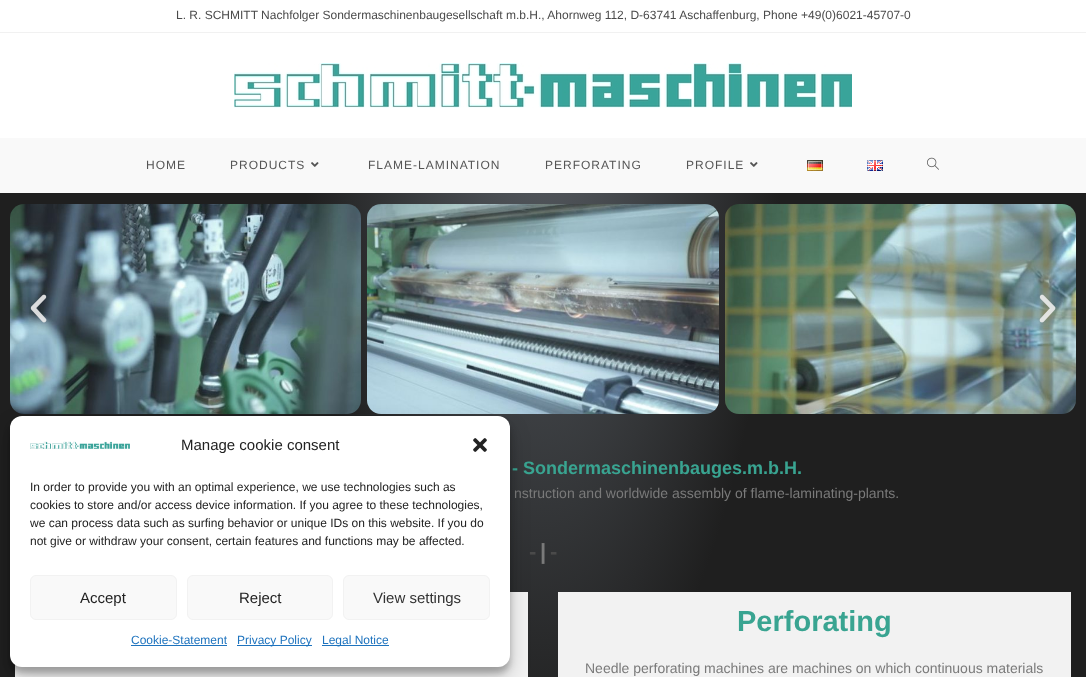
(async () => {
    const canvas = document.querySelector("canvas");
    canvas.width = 1086;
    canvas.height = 677;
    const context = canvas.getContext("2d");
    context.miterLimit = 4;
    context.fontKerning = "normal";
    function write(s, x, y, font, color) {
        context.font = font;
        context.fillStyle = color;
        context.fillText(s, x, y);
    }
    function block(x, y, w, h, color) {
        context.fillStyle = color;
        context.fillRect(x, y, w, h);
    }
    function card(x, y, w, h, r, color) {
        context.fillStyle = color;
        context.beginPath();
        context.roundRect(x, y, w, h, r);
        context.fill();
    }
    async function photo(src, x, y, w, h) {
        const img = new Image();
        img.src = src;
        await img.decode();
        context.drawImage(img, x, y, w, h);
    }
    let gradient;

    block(0, 0, 1086, 677, "rgb(255, 255, 255)");
    gradient = context.createRadialGradient(543, 0, 0, 543, 0, 768);
    gradient.addColorStop(0.05, "rgb(84, 89, 95)");
    gradient.addColorStop(0.32, "rgb(31, 31, 31)");
    context.fillStyle = gradient;
    context.beginPath();
    context.rect(0, 193, 1086, 484);
    context.save();
    context.clip();
    context.scale(1, 2384 / 768);
    context.fillRect(0, 0, 1086, 219);
    context.restore();
    block(0, 32, 1086, 1, "rgb(241, 241, 241)");
    write("L. R. SCHMITT Nachfolger Sondermaschinenbaugesellschaft m.b.H., Ahornweg 112, D-63741 Aschaffenburg, Phone +49(0)6021-45707-0", 176, 19, "12px Liberation Sans", "rgb(74, 74, 74)");
    await photo("media/1.png", 234, 63, 618, 45);
    block(0, 138, 1086, 55, "rgb(249, 249, 249)");
    context.letterSpacing = "1px";
    write("HOME", 146, 169, "12px Liberation Sans", "rgb(85, 85, 85)");
    write("PRODUCTS", 230, 169, "12px Liberation Sans", "rgb(85, 85, 85)");
    await photo("media/2.png", 311, 162, 8, 5);
    write("FLAME-LAMINATION", 368, 169, "12px Liberation Sans", "rgb(85, 85, 85)");
    write("PERFORATING", 545, 169, "12px Liberation Sans", "rgb(85, 85, 85)");
    write("PROFILE", 686, 169, "12px Liberation Sans", "rgb(85, 85, 85)");
    await photo("media/2.png", 750, 162, 8, 5);
    await photo("media/3.png", 807, 160, 16, 11);
    await photo("media/4.png", 867, 160, 16, 11);
    await photo("media/5.png", 927, 157, 12, 13);
    await photo("media/6.png", 10, 204, 351, 210);
    await photo("media/7.png", 367, 204, 352, 210);
    await photo("media/8.png", 725, 204, 351, 210);
    await photo("media/9.png", 30, 294, 17, 29);
    await photo("media/10.png", 1039, 294, 17, 29);
    context.letterSpacing = "0px";
    write("- Sondermaschinenbauges.m.b.H.", 512, 474, "bold 18px Liberation Sans", "rgb(57, 164, 145)");
    write("nstruction and worldwide assembly of flame-laminating-plants.", 514, 498, "14px Liberation Sans", "rgb(122, 122, 122)");
    write("-", 529, 559, "bold 22px Liberation Sans", "rgb(74, 74, 74)");
    write("|", 540, 559, "bold 22px Liberation Sans", "rgb(122, 122, 122)");
    write("-", 550, 559, "bold 22px Liberation Sans", "rgb(74, 74, 74)");
    block(15, 592, 513, 85, "rgb(242, 242, 242)");
    block(558, 592, 513, 85, "rgb(242, 242, 242)");
    write("Perforating", 737, 631, "bold 29px Liberation Sans", "rgb(57, 164, 145)");
    write("Needle perforating machines are machines on which continuous materials", 585, 673, "14px Liberation Sans", "rgb(122, 122, 122)");
    context.fillStyle = "rgba(0, 0, 0, 0.23)";
    context.filter = "blur(3px)";
    context.beginPath();
    context.roundRect(10, 422, 500, 251, 12);
    context.fill();
    context.filter = "none";
    context.fillStyle = "rgba(0, 0, 0, 0.19)";
    context.filter = "blur(10px)";
    context.beginPath();
    context.roundRect(10, 426, 500, 251, 12);
    context.fill();
    context.filter = "none";
    card(10, 416, 500, 251, 12, "rgb(255, 255, 255)");
    await photo("media/11.png", 30, 441, 100, 8);
    write("Manage cookie consent", 181, 450, "15px Liberation Sans", "rgb(34, 34, 34)");
    await photo("media/12.png", 473, 438, 14, 14);
    write("In order to provide you with an optimal experience, we use technologies such as", 30, 491, "12px Liberation Sans", "rgb(34, 34, 34)");
    write("cookies to store and/or access device information. If you agree to these technologies,", 30, 509, "12px Liberation Sans", "rgb(34, 34, 34)");
    write("we can process data such as surfing behavior or unique IDs on this website. If you do", 30, 527, "12px Liberation Sans", "rgb(34, 34, 34)");
    write("not give or withdraw your consent, certain features and functions may be affected.", 30, 545, "12px Liberation Sans", "rgb(34, 34, 34)");
    context.fillStyle = "rgb(249, 249, 249)";
    context.beginPath();
    context.roundRect(30.5, 575.5, 146, 44, 5.5);
    context.fill();
    context.strokeStyle = "rgb(242, 242, 242)";
    context.stroke();
    write("Accept", 80, 603, "15px Liberation Sans", "rgb(34, 34, 34)");
    context.fillStyle = "rgb(249, 249, 249)";
    context.beginPath();
    context.roundRect(187.5, 575.5, 145, 44, 5.5);
    context.fill();
    context.stroke();
    write("Reject", 239, 603, "15px Liberation Sans", "rgb(34, 34, 34)");
    context.fillStyle = "rgb(249, 249, 249)";
    context.beginPath();
    context.roundRect(343.5, 575.5, 146, 44, 5.5);
    context.fill();
    context.stroke();
    write("View settings", 373, 603, "15px Liberation Sans", "rgb(51, 51, 51)");
    write("Cookie-Statement", 131, 644, "12px Liberation Sans", "rgb(30, 115, 190)");
    block(131, 645, 96, 1, "rgb(30, 115, 190)");
    block(237, 645, 75, 1, "rgb(30, 115, 190)");
    write("Privacy Policy", 237, 644, "12px Liberation Sans", "rgb(30, 115, 190)");
    block(322, 645, 67, 1, "rgb(30, 115, 190)");
    write("Legal Notice", 322, 644, "12px Liberation Sans", "rgb(30, 115, 190)");
})();
